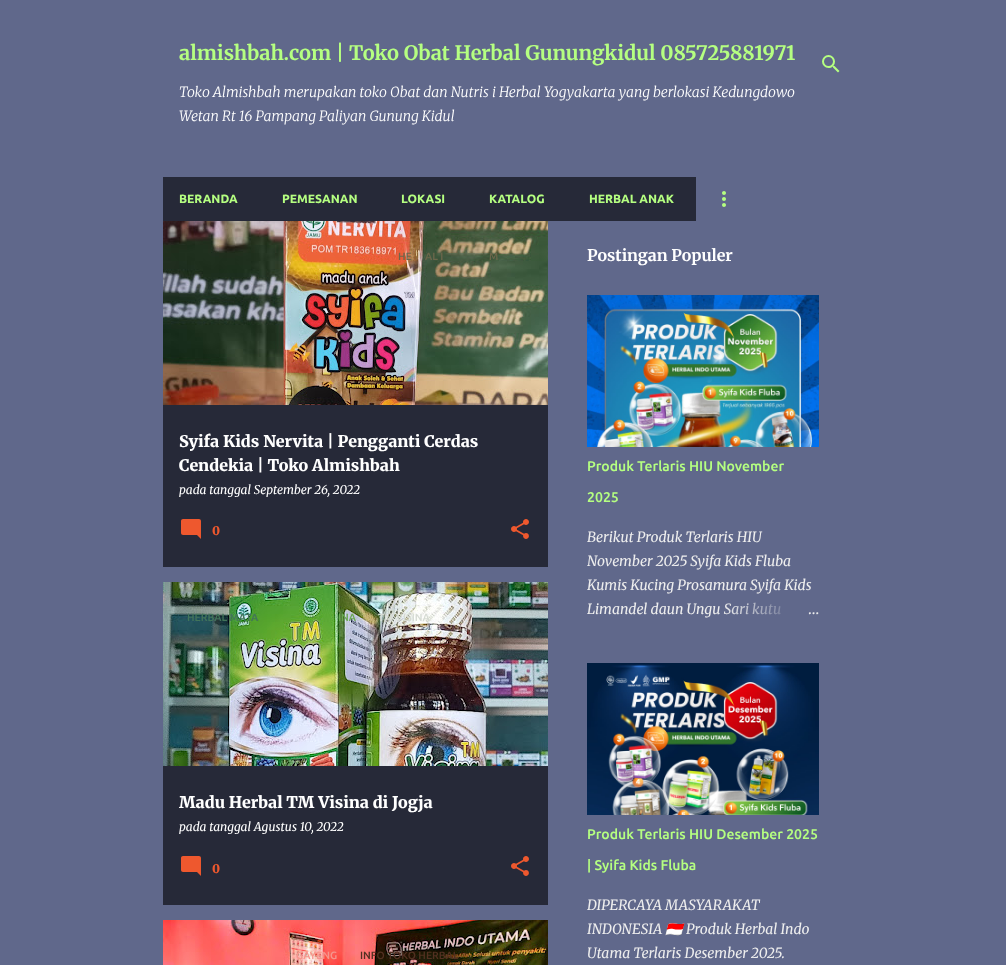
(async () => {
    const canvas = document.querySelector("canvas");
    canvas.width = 1006;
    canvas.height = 965;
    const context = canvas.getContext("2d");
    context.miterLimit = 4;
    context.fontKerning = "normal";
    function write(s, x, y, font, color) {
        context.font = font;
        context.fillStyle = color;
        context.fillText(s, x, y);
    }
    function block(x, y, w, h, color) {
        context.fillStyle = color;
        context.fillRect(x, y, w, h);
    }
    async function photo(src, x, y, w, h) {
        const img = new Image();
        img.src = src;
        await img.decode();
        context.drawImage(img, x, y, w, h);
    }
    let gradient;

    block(0, 0, 1006, 965, "rgb(96, 104, 139)");
    write("almishbah.com | Toko Obat Herbal Gunungkidul 085725881971", 179, 60, "bold 20px Merriweather", "rgb(181, 255, 129)");
    write("Toko Almishbah merupakan toko Obat dan Nutris i Herbal Yogyakarta yang berlokasi Kedungdowo", 179, 97, "italic 300 14px Merriweather", "rgb(255, 255, 255)");
    write("Wetan Rt 16 Pampang Paliyan Gunung Kidul", 179, 121, "italic 300 14px Merriweather", "rgb(255, 255, 255)");
    await photo("media/1.png", 822, 55, 18, 18);
    block(163, 177, 533, 44, "rgb(38, 41, 56)");
    write("BERANDA", 179, 203, "bold 12px Ubuntu", "rgb(181, 255, 129)");
    write("PEMESANAN", 282, 203, "bold 12px Ubuntu", "rgb(181, 255, 129)");
    write("LOKASI", 401, 203, "bold 12px Ubuntu", "rgb(181, 255, 129)");
    write("KATALOG", 489, 203, "bold 12px Ubuntu", "rgb(181, 255, 129)");
    write("HERBAL ANAK", 589, 203, "bold 12px Ubuntu", "rgb(181, 255, 129)");
    await photo("media/2.png", 722, 191, 4, 16);
    block(163, 405, 385, 162, "rgb(38, 41, 56)");
    await photo("media/3.png", 163, 221, 385, 184);
    write("HE", 398, 260, "500 10.5px Ubuntu", "rgb(108, 103, 75)");
    write("AL I", 425, 260, "500 10.5px Ubuntu", "rgb(108, 103, 75)");
    write("M", 489, 260, "500 10.5px Ubuntu", "rgb(108, 103, 75)");
    write("pada tanggal September 26, 2022", 179, 494, "italic 12px Merriweather", "rgb(255, 255, 255)");
    write("Syifa Kids Nervita | Pengganti Cerdas", 179, 447, "900 16px Merriweather", "rgb(255, 255, 255)");
    write("Cendekia | Toko Almishbah", 179, 471, "900 16px Merriweather", "rgb(255, 255, 255)");
    await photo("media/4.png", 181, 519, 20, 20);
    write("0", 212, 535, "900 12px Merriweather", "rgb(238, 88, 46)");
    await photo("media/5.png", 511, 519, 18, 20);
    block(163, 766, 385, 139, "rgb(38, 41, 56)");
    await photo("media/6.png", 163, 582, 385, 184);
    write("HERBAL MATA", 187, 621, "500 10.5px Ubuntu", "rgb(66, 116, 90)");
    write("INA", 338, 621, "500 10.5px Ubuntu", "rgb(107, 168, 83)");
    write("TM VISINA", 378, 621, "500 10.5px Ubuntu", "rgb(214, 219, 212)");
    write("pada tanggal Agustus 10, 2022", 179, 831, "italic 12px Merriweather", "rgb(255, 255, 255)");
    write("Madu Herbal TM Visina di Jogja", 179, 808, "900 16px Merriweather", "rgb(255, 255, 255)");
    await photo("media/4.png", 181, 856, 20, 20);
    write("0", 212, 873, "900 12px Merriweather", "rgb(238, 88, 46)");
    await photo("media/5.png", 511, 856, 18, 20);
    await photo("media/7.png", 163, 920, 385, 45);
    write("GAYENG", 296, 959, "500 10.5px Ubuntu", "rgb(246, 149, 140)");
    write("INFO TOKO HERBAL", 360, 959, "500 10.5px Ubuntu", "rgb(82, 48, 33)");
    write("Postingan Populer", 587, 261, "bold 16px Merriweather", "rgb(255, 255, 255)");
    await photo("media/8.png", 587, 295, 232, 152);
    write("Produk Terlaris HIU November", 587, 471, "500 14px Ubuntu", "rgb(181, 255, 129)");
    write("2025", 587, 502, "500 14px Ubuntu", "rgb(181, 255, 129)");
    write("Berikut Produk Terlaris HIU", 587, 542, "italic 14px Merriweather", "rgb(238, 238, 238)");
    write("November 2025 Syifa Kids Fluba", 587, 566, "italic 14px Merriweather", "rgb(238, 238, 238)");
    write("Kumis Kucing Prosamura Syifa Kids", 587, 590, "italic 14px Merriweather", "rgb(238, 238, 238)");
    write("Limandel daun Ungu Sari kutu", 587, 614, "italic 14px Merriweather", "rgb(238, 238, 238)");
    gradient = context.createLinearGradient(819, 609, 723, 609);
    gradient.addColorStop(0, "rgb(96, 104, 139)");
    gradient.addColorStop(0.2, "rgb(96, 104, 139)");
    gradient.addColorStop(1, "rgba(96, 104, 139, 0)");
    context.fillStyle = gradient;
    context.fillRect(725, 602, 56, 13);
    write("…", 808, 614, "14px Merriweather", "rgb(238, 238, 238)");
    await photo("media/9.png", 587, 663, 232, 152);
    write("Produk Terlaris HIU Desember 2025", 587, 839, "500 14px Ubuntu", "rgb(181, 255, 129)");
    write("| Syifa Kids Fluba", 587, 870, "500 14px Ubuntu", "rgb(181, 255, 129)");
    write("DIPERCAYA MASYARAKAT", 587, 910, "italic 14px Merriweather", "rgb(238, 238, 238)");
    write("INDONESIA", 587, 934, "italic 14px Merriweather", "rgb(238, 238, 238)");
    write("🇮🇩", 665, 934, "italic 14px Noto Color Emoji", "rgb(238, 238, 238)");
    write("Produk Herbal Indo", 686, 934, "italic 14px Merriweather", "rgb(238, 238, 238)");
    write("Utama Terlaris Desember 2025.", 587, 958, "italic 14px Merriweather", "rgb(238, 238, 238)");
})();
